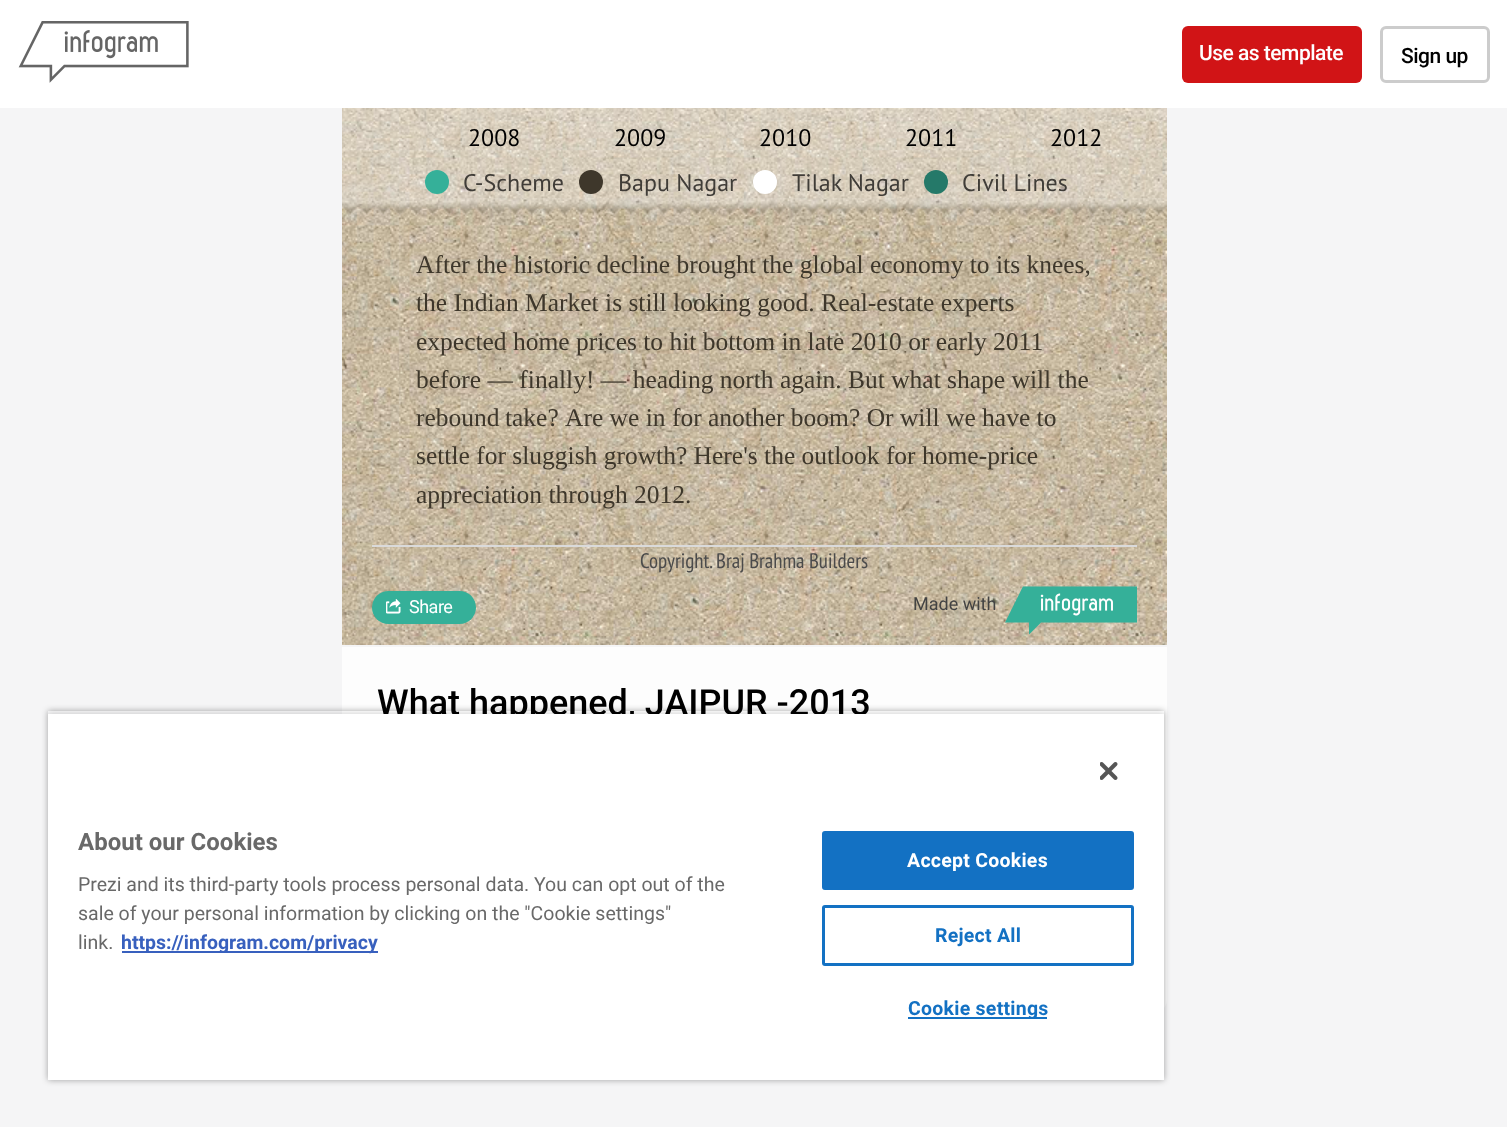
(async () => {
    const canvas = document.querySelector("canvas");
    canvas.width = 1507;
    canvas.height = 1127;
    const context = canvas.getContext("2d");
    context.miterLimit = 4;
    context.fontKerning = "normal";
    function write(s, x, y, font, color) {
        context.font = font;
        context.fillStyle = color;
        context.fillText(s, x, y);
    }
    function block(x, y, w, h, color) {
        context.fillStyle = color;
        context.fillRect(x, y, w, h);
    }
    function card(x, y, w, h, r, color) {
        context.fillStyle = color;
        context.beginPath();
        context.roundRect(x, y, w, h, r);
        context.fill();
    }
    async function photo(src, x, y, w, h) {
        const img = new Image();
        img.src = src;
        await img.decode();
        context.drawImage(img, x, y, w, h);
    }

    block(0, 0, 1507, 1127, "rgb(245, 245, 246)");
    block(0, 0, 1507, 108, "rgb(255, 255, 255)");
    await photo("media/1.png", 18, 21, 171, 62);
    card(1182, 26, 180, 57, 6, "rgb(209, 20, 22)");
    context.letterSpacing = "-0.5px";
    write("Use as template", 1199, 60, "500 21px Roboto", "rgb(255, 255, 255)");
    context.beginPath();
    context.roundRect(1381.5, 27.5, 107, 54, 4.5);
    context.strokeStyle = "rgb(204, 204, 204)";
    context.lineWidth = 3;
    context.stroke();
    write("Sign up", 1401, 63, "500 21px Roboto", "rgb(0, 0, 0)");
    await photo("media/2.png", 342, 108, 825, 537);
    await photo("media/3.png", 342, 198, 825, 18);
    block(342, 108, 825, 90, "rgba(255, 255, 255, 0.3)");
    context.letterSpacing = "0px";
    write("2008", 468, 146, "24px PT Sans", "rgb(0, 0, 0)");
    write("2009", 614, 146, "24px PT Sans", "rgb(0, 0, 0)");
    write("2010", 759, 146, "24px PT Sans", "rgb(0, 0, 0)");
    write("2011", 905, 146, "24px PT Sans", "rgb(0, 0, 0)");
    write("2012", 1050, 146, "24px PT Sans", "rgb(0, 0, 0)");
    context.fillStyle = "rgb(53, 176, 153)";
    context.beginPath();
    context.arc(437, 182, 12, 0, Math.PI * 2);
    context.fill();
    write("C-Scheme", 463, 191, "24px PT Sans", "rgb(64, 61, 56)");
    context.fillStyle = "rgb(62, 55, 43)";
    context.beginPath();
    context.arc(591, 182, 12, 0, Math.PI * 2);
    context.fill();
    write("Bapu Nagar", 618, 191, "24px PT Sans", "rgb(64, 61, 56)");
    context.fillStyle = "rgb(255, 255, 255)";
    context.beginPath();
    context.arc(765, 182, 12, 0, Math.PI * 2);
    context.fill();
    write("Tilak Nagar", 792, 191, "24px PT Sans", "rgb(64, 61, 56)");
    context.fillStyle = "rgb(37, 121, 105)";
    context.beginPath();
    context.arc(936, 182, 12, 0, Math.PI * 2);
    context.fill();
    write("Civil Lines", 962, 191, "24px PT Sans", "rgb(64, 61, 56)");
    write("After the historic decline brought the global economy to its knees,", 416, 273, "25.5px Liberation Serif", "rgb(62, 55, 43)");
    write("the Indian Market is still looking good. Real-estate experts", 416, 311, "25.5px Liberation Serif", "rgb(62, 55, 43)");
    write("expected home prices to hit bottom in late 2010 or early 2011", 416, 350, "25.5px Liberation Serif", "rgb(62, 55, 43)");
    write("before — finally! — heading north again. But what shape will the", 416, 388, "25.5px Liberation Serif", "rgb(62, 55, 43)");
    context.wordSpacing = "-1px";
    write("rebound take?", 416, 426, "25.5px Liberation Serif", "rgb(62, 55, 43)");
    context.wordSpacing = "0px";
    write("Are we in for another boom? Or will we have to", 565, 426, "25.5px Liberation Serif", "rgb(62, 55, 43)");
    write("settle for sluggish growth? Here's the outlook for home-price", 416, 464, "25.5px Liberation Serif", "rgb(62, 55, 43)");
    write("appreciation through 2012.", 416, 503, "25.5px Liberation Serif", "rgb(62, 55, 43)");
    block(372, 545, 765, 2, "rgb(218, 218, 218)");
    write("Copyright. Braj Brahma Builders", 640, 568, "21px PT Sans Narrow", "rgb(75, 75, 75)");
    card(372, 591, 104, 33, 16.5, "rgb(53, 176, 153)");
    await photo("media/4.png", 386, 599, 15, 15);
    context.letterSpacing = "-0.5px";
    write("Share", 409, 613, "18px Roboto", "rgb(255, 255, 255)");
    context.letterSpacing = "0px";
    write("Made with", 913, 610, "18px Roboto", "rgb(67, 67, 67)");
    await photo("media/5.png", 1005, 586, 132, 49);
    context.fillStyle = "rgb(253, 253, 253)";
    context.beginPath();
    context.roundRect(342, 645, 825, 369, [0, 0, 15, 15]);
    context.fill();
    block(342, 645, 825, 2, "rgb(245, 245, 246)");
    write("What happened, JAIPUR -2013", 377, 715, "500 36px Roboto", "rgb(0, 0, 0)");
    context.save();
    context.beginPath();
    context.moveTo(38, 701);
    context.lineTo(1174, 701);
    context.lineTo(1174, 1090);
    context.lineTo(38, 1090);
    context.closePath();
    context.moveTo(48, 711);
    context.lineTo(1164, 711);
    context.lineTo(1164, 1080);
    context.lineTo(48, 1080);
    context.closePath();
    context.clip("evenodd");
    context.fillStyle = "rgba(0, 0, 0, 0.35)";
    context.filter = "blur(3px)";
    context.beginPath();
    context.rect(48, 711, 1116, 369);
    context.fill();
    context.filter = "none";
    context.restore();
    context.save();
    context.beginPath();
    context.rect(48, 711, 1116, 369);
    context.clip();
    context.fillStyle = "rgba(0, 0, 0, 0.2)";
    context.filter = "blur(3px)";
    context.beginPath();
    context.rect(48, 714, 1116, 366);
    context.fill();
    context.filter = "none";
    context.restore();
    block(48, 714, 1116, 366, "rgb(255, 255, 255)");
    await photo("media/6.png", 1100, 762, 18, 18);
    write("About our Cookies", 78, 850, "bold 24px Roboto", "rgb(105, 105, 105)");
    write("Prezi and its third-party tools process personal data. You can opt out of the", 78, 891, "19.5px Roboto", "rgb(105, 105, 105)");
    write("sale of your personal information by clicking on the \"Cookie settings\"", 78, 920, "19.5px Roboto", "rgb(105, 105, 105)");
    write("link.", 78, 949, "19.5px Roboto", "rgb(105, 105, 105)");
    block(122, 951, 256, 2, "rgb(56, 96, 190)");
    write("https://infogram.com/privacy", 121, 949, "bold 19.5px Roboto", "rgb(56, 96, 190)");
    context.fillStyle = "rgb(19, 113, 195)";
    context.beginPath();
    context.roundRect(823, 832, 310, 57, 2);
    context.fill();
    context.strokeStyle = "rgb(19, 113, 195)";
    context.lineWidth = 2;
    context.stroke();
    context.letterSpacing = "0.25px";
    write("Accept Cookies", 907, 867, "bold 19.5px Roboto", "rgb(255, 255, 255)");
    context.beginPath();
    context.roundRect(823.5, 906.5, 309, 58, 1.5);
    context.lineWidth = 3;
    context.stroke();
    write("Reject All", 935, 942, "bold 19.5px Roboto", "rgb(19, 113, 195)");
    block(908, 1017, 139, 2, "rgb(19, 113, 195)");
    write("Cookie settings", 908, 1015, "bold 19.5px Roboto", "rgb(19, 113, 195)");
})();
